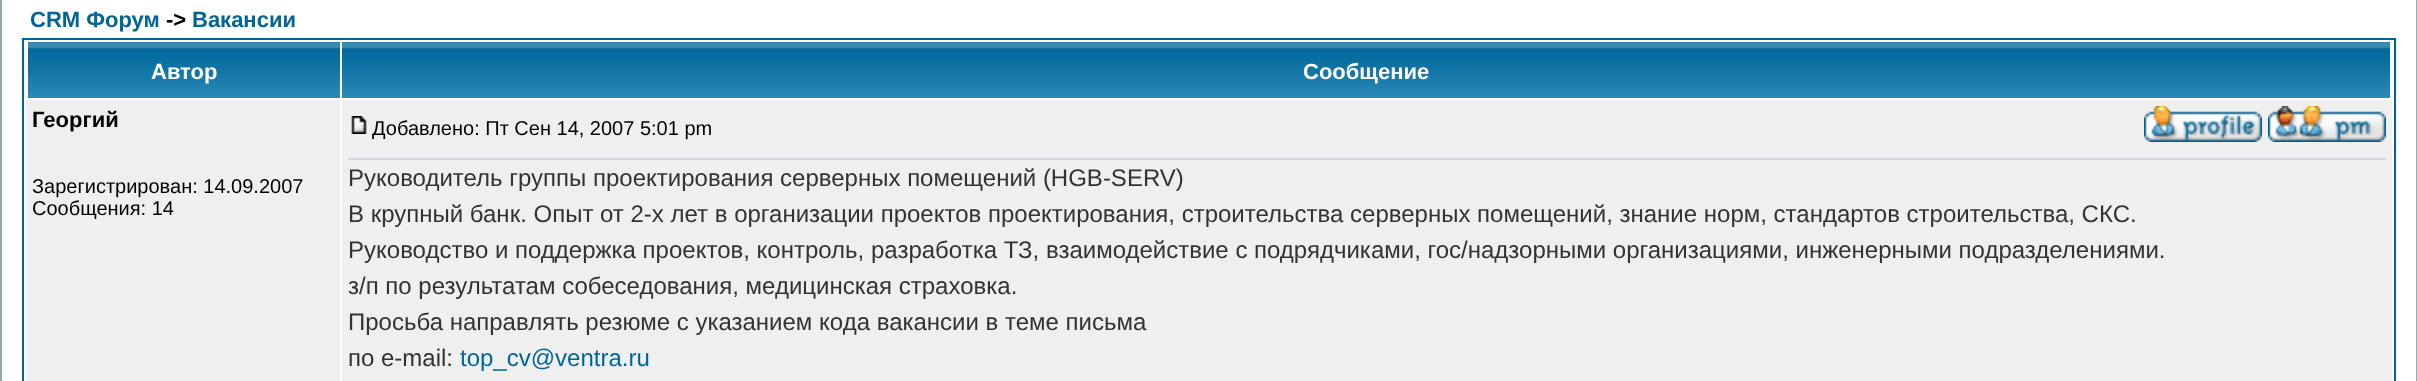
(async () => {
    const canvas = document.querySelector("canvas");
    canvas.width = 2417;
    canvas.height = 381;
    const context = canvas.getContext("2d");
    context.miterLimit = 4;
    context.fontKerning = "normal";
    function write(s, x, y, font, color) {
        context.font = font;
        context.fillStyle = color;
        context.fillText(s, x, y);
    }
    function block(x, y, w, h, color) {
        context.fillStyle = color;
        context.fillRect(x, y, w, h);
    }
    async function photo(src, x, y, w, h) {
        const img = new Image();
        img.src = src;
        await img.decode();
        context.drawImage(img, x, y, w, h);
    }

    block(0, 0, 2417, 381, "rgb(255, 255, 255)");
    context.strokeStyle = "rgb(152, 170, 177)";
    context.lineWidth = 2;
    context.strokeRect(1, -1, 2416, 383);
    write("CRM Форум", 30, 27, "bold 22px Liberation Sans", "rgb(0, 102, 153)");
    write("->", 166, 27, "bold 22px Liberation Sans", "rgb(0, 0, 0)");
    write("Вакансии", 192, 27, "bold 22px Liberation Sans", "rgb(0, 102, 153)");
    context.strokeStyle = "rgb(0, 102, 153)";
    context.strokeRect(23, 39, 2372, 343);
    await photo("media/1.png", 28, 42, 312, 56);
    write("Автор", 151, 79, "bold 22px Liberation Sans", "rgb(255, 255, 255)");
    await photo("media/2.png", 342, 42, 2048, 56);
    write("Сообщение", 1303, 79, "bold 22px Liberation Sans", "rgb(255, 255, 255)");
    block(26, 100, 314, 281, "rgb(239, 239, 239)");
    write("Георгий", 32, 127, "bold 22px Liberation Sans", "rgb(0, 0, 0)");
    write("Зарегистрирован: 14.09.2007", 32, 193, "20px Liberation Sans", "rgb(0, 0, 0)");
    write("Сообщения: 14", 32, 215, "20px Liberation Sans", "rgb(0, 0, 0)");
    block(342, 100, 2050, 281, "rgb(239, 239, 239)");
    await photo("media/3.png", 351, 116, 16, 18);
    write("Добавлено: Пт Сен 14, 2007 5:01 pm", 372, 135, "20px Liberation Sans", "rgb(0, 0, 0)");
    await photo("media/4.png", 2144, 106, 118, 36);
    await photo("media/5.png", 2268, 106, 118, 36);
    block(348, 158, 2038, 2, "rgb(209, 215, 220)");
    write("Руководитель группы проектирования серверных помещений (HGB-SERV)", 348, 186, "24px Liberation Sans", "rgb(51, 51, 51)");
    write("В крупный банк. Опыт от 2-х лет в организации проектов проектирования, строительства серверных помещений, знание норм, стандартов строительства, СКС.", 348, 222, "24px Liberation Sans", "rgb(51, 51, 51)");
    write("Руководство и поддержка проектов, контроль, разработка ТЗ, взаимодействие с подрядчиками, гос/надзорными организациями, инженерными подразделениями.", 348, 258, "24px Liberation Sans", "rgb(51, 51, 51)");
    write("з/п по результатам собеседования, медицинская страховка.", 348, 294, "24px Liberation Sans", "rgb(51, 51, 51)");
    write("Просьба направлять резюме с указанием кода вакансии в теме письма", 348, 330, "24px Liberation Sans", "rgb(51, 51, 51)");
    write("по e-mail:", 348, 366, "24px Liberation Sans", "rgb(51, 51, 51)");
    write("top_cv@ventra.ru", 460, 366, "24px Liberation Sans", "rgb(0, 102, 153)");
})();
